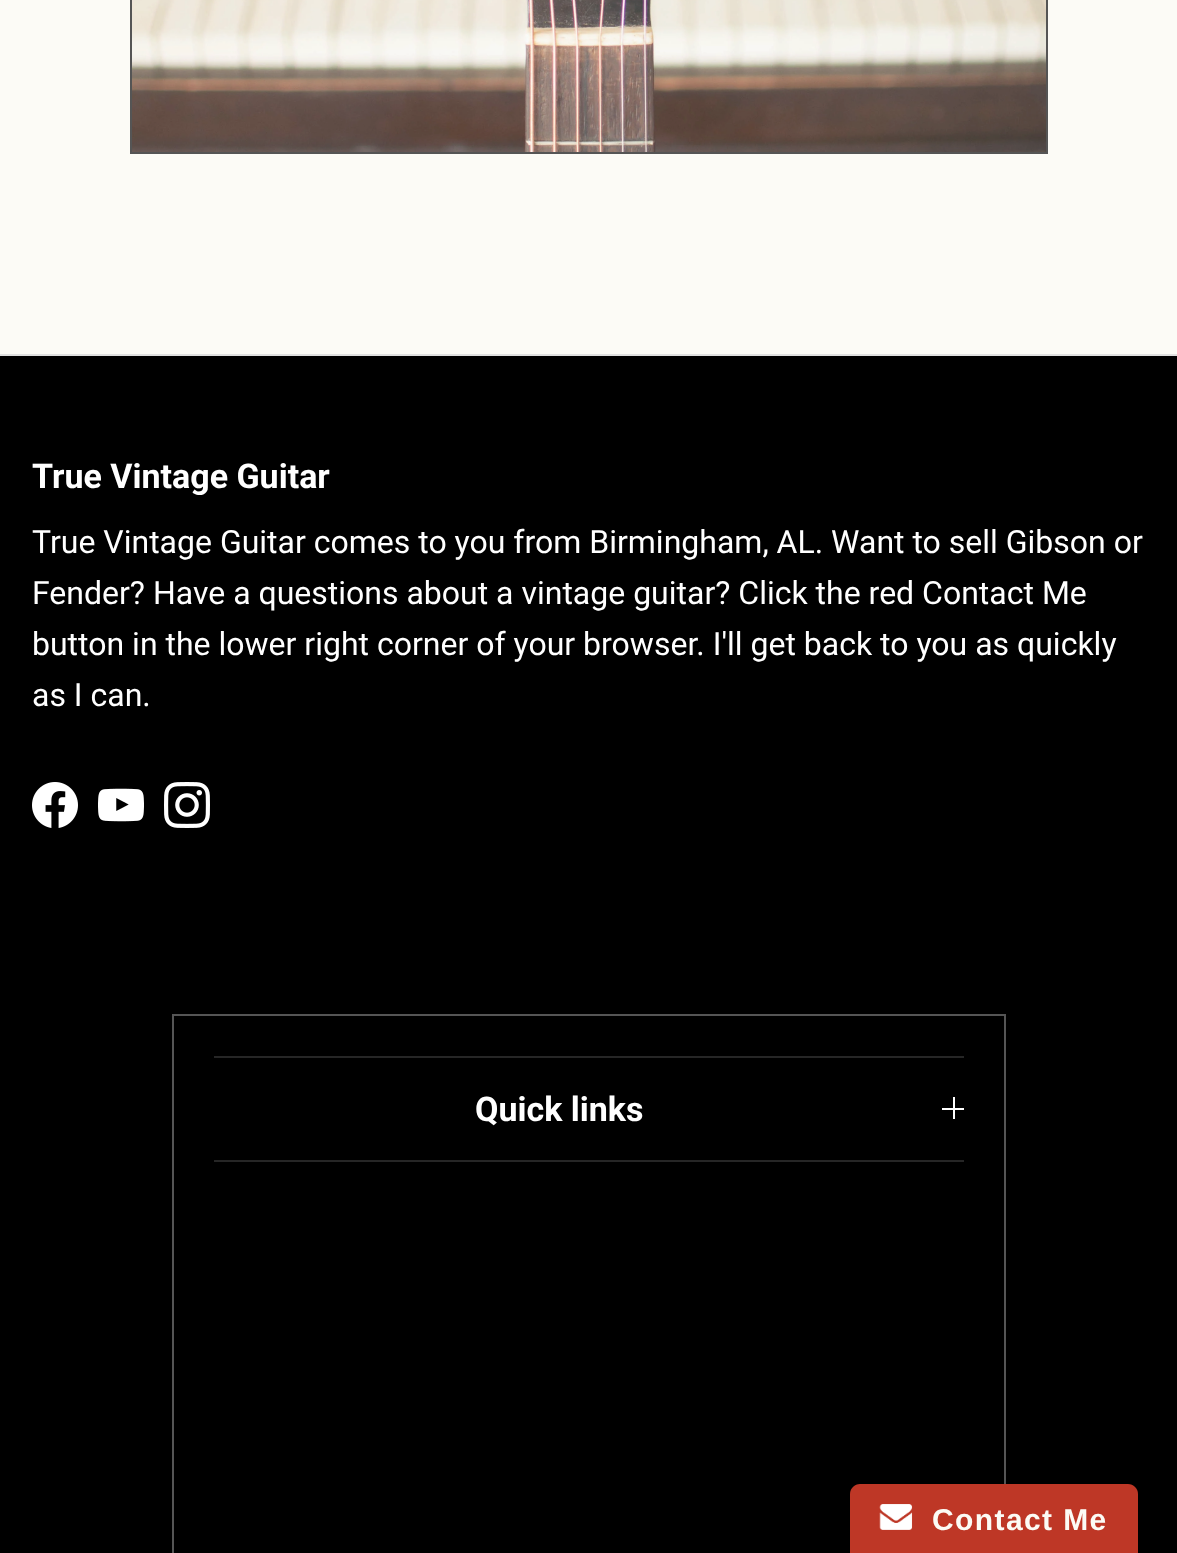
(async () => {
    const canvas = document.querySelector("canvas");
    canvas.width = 1177;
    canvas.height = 1553;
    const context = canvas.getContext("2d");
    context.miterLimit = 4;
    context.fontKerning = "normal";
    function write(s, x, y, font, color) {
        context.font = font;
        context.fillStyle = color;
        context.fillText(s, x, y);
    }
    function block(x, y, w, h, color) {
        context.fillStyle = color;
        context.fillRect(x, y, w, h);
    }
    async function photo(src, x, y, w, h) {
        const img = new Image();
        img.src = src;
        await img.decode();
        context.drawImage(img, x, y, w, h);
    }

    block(0, 0, 1177, 1553, "rgb(252, 251, 246)");
    await photo("media/1.png", 132, 0, 914, 152);
    context.strokeStyle = "rgb(85, 85, 85)";
    context.lineWidth = 2;
    context.strokeRect(131, -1, 916, 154);
    block(0, 356, 1177, 1197, "rgb(0, 0, 0)");
    block(0, 354, 1177, 2, "rgb(224, 224, 224)");
    write("True Vintage Guitar", 32, 488, "bold 34px Roboto", "rgb(255, 255, 255)");
    write("True Vintage Guitar comes to you from Birmingham, AL. Want to sell Gibson or", 32, 553, "32px Roboto", "rgb(255, 255, 255)");
    write("Fender? Have a questions about a vintage guitar? Click the red Contact Me", 32, 604, "32px Roboto", "rgb(255, 255, 255)");
    write("button in the lower right corner of your browser. I'll get back to you as quickly", 32, 655, "32px Roboto", "rgb(255, 255, 255)");
    write("as I can.", 32, 706, "32px Roboto", "rgb(255, 255, 255)");
    await photo("media/2.png", 32, 782, 46, 46);
    await photo("media/3.png", 98, 788, 46, 34);
    await photo("media/4.png", 164, 782, 46, 46);
    context.strokeRect(173, 1015, 832, 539);
    block(214, 1056, 750, 2, "rgb(38, 38, 38)");
    block(214, 1160, 750, 2, "rgb(38, 38, 38)");
    write("Quick links", 475, 1121, "bold 34px Roboto", "rgb(255, 255, 255)");
    block(953, 1097, 2, 22, "rgb(255, 255, 255)");
    block(942, 1108, 22, 2, "rgb(255, 255, 255)");
    context.fillStyle = "rgb(190, 55, 38)";
    context.beginPath();
    context.moveTo(860, 1484);
    context.lineTo(1128, 1484);
    context.bezierCurveTo(1133.5, 1484, 1138, 1488.5, 1138, 1494);
    context.lineTo(1138, 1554);
    context.lineTo(850, 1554);
    context.lineTo(850, 1494);
    context.bezierCurveTo(850, 1488.5, 854.5, 1484, 860, 1484);
    context.closePath();
    context.fill();
    await photo("media/5.png", 879, 1504, 34, 26);
    context.letterSpacing = "1.4px";
    write("Contact Me", 932, 1530, "bold 30px Liberation Sans", "rgb(252, 251, 245)");
})();
